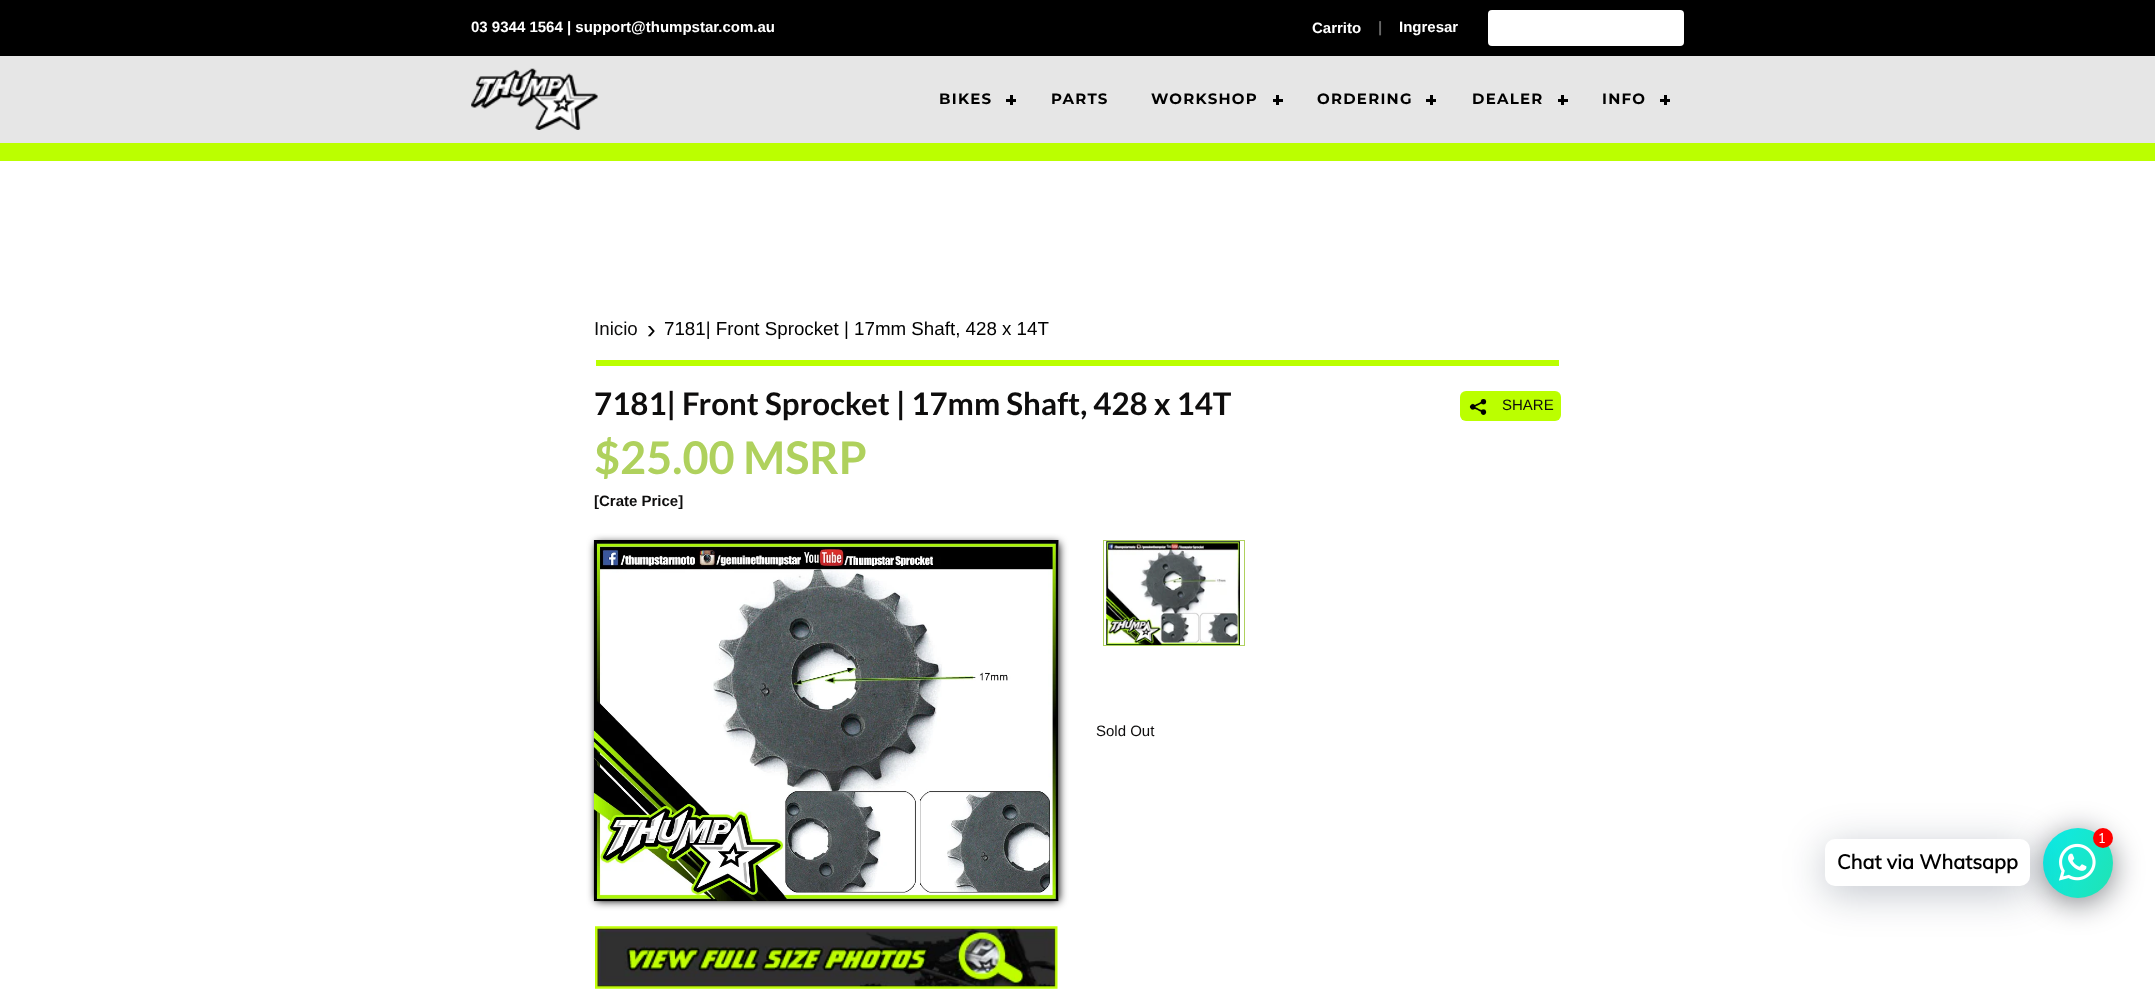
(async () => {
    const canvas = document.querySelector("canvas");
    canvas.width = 2155;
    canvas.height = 995;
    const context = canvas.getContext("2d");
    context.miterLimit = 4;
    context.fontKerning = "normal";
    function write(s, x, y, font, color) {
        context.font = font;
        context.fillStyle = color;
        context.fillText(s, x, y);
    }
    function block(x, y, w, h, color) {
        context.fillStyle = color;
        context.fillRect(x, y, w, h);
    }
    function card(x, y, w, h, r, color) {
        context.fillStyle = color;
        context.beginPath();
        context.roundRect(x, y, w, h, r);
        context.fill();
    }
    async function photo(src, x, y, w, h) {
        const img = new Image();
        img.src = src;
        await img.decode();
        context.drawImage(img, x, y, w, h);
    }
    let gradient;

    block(0, 0, 2155, 995, "rgb(255, 255, 255)");
    block(0, 0, 2155, 56, "rgb(0, 0, 0)");
    write("03 9344 1564 | support@thumpstar.com.au", 471, 32, "bold 15px Liberation Sans", "rgb(255, 255, 255)");
    write("Carrito", 1312, 33, "bold 15px Liberation Sans", "rgb(255, 255, 255)");
    write("|", 1378, 32, "bold 15px Liberation Sans", "rgb(102, 102, 102)");
    write("Ingresar", 1399, 32, "bold 15px Liberation Sans", "rgb(255, 255, 255)");
    card(1488, 10, 196, 36, 4, "rgb(255, 255, 255)");
    block(0, 56, 2155, 87, "rgb(230, 230, 230)");
    block(0, 143, 2155, 18, "rgb(187, 255, 0)");
    await photo("media/1.png", 471, 68, 127, 62);
    context.letterSpacing = "1.25px";
    write("BIKES", 939, 104, "bold 15px Montserrat", "rgb(0, 0, 0)");
    block(1010, 95, 3, 10, "rgb(0, 0, 0)");
    block(1006, 99, 10, 3, "rgb(0, 0, 0)");
    write("PARTS", 1051, 104, "bold 15px Montserrat", "rgb(0, 0, 0)");
    write("WORKSHOP", 1151, 104, "bold 15px Montserrat", "rgb(0, 0, 0)");
    block(1276, 95, 3, 10, "rgb(0, 0, 0)");
    block(1273, 99, 10, 3, "rgb(0, 0, 0)");
    write("ORDERING", 1317, 104, "bold 15px Montserrat", "rgb(0, 0, 0)");
    block(1430, 95, 3, 10, "rgb(0, 0, 0)");
    block(1426, 99, 10, 3, "rgb(0, 0, 0)");
    write("DEALER", 1472, 104, "bold 15px Montserrat", "rgb(0, 0, 0)");
    block(1561, 95, 3, 10, "rgb(0, 0, 0)");
    block(1558, 99, 10, 3, "rgb(0, 0, 0)");
    write("INFO", 1602, 104, "bold 15px Montserrat", "rgb(0, 0, 0)");
    block(1664, 95, 3, 10, "rgb(0, 0, 0)");
    block(1660, 99, 10, 3, "rgb(0, 0, 0)");
    block(596, 360, 963, 6, "rgb(187, 255, 0)");
    context.letterSpacing = "0px";
    write("Inicio", 594, 335, "18.75px Liberation Sans", "rgb(14, 13, 13)");
    write("›", 647, 338, "26px Liberation Sans", "rgb(0, 0, 0)");
    write("7181| Front Sprocket | 17mm Shaft, 428 x 14T", 664, 335, "18.75px Liberation Sans", "rgb(0, 0, 0)");
    write("7181| Front Sprocket | 17mm Shaft, 428 x 14T", 594, 415, "bold 31.25px Lato", "rgb(14, 13, 13)");
    card(1460, 391, 101, 30, 6, "rgb(187, 255, 0)");
    await photo("media/2.png", 1469, 399, 18, 16);
    write("SHARE", 1502, 410, "15px Liberation Sans", "rgb(14, 13, 13)");
    write("$25.00 MSRP", 594, 474, "bold 45px Lato", "rgb(175, 209, 93)");
    write("[Crate Price]", 594, 506, "bold 15px Liberation Sans", "rgb(14, 13, 13)");
    context.fillStyle = "rgb(0, 0, 0)";
    context.filter = "blur(4.5px)";
    context.beginPath();
    context.rect(596, 543, 463, 358);
    context.fill();
    context.filter = "none";
    block(1058, 540, 1, 361, "rgb(255, 255, 255)");
    await photo("media/3.png", 593, 540, 466, 362);
    await photo("media/4.png", 595, 926, 463, 63);
    context.strokeStyle = "rgb(175, 209, 93)";
    context.strokeRect(1103.5, 540.5, 141, 105);
    await photo("media/5.png", 1106, 541, 134, 104);
    write("Sold Out", 1096, 736, "15px Liberation Sans", "rgb(14, 13, 13)");
    context.fillStyle = "rgba(2, 6, 16, 0.5)";
    context.filter = "blur(15px)";
    context.beginPath();
    context.roundRect(2043, 833, 70, 70, 35);
    context.fill();
    context.filter = "none";
    gradient = context.createLinearGradient(2035, 843, 2120, 882);
    gradient.addColorStop(0, "rgb(12, 235, 235)");
    gradient.addColorStop(1, "rgb(32, 227, 178)");
    context.fillStyle = gradient;
    context.beginPath();
    context.arc(2078, 863, 35, 0, Math.PI * 2);
    context.fill();
    context.fillStyle = "rgba(0, 18, 46, 0.24)";
    context.filter = "blur(20px)";
    context.beginPath();
    context.roundRect(1825, 846, 205, 48, 10);
    context.fill();
    context.filter = "none";
    await photo("media/6.png", 2058, 843, 38, 38);
    context.fillStyle = "rgb(255, 0, 0)";
    context.beginPath();
    context.arc(2103, 838, 10, 0, Math.PI * 2);
    context.fill();
    write("1", 2099, 843, "14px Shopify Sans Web", "rgb(255, 255, 255)");
    card(1825, 839, 205, 47, 10, "rgb(255, 255, 255)");
    write("Chat via Whatsapp", 1837, 869, "bold 20px Muli", "rgb(0, 0, 0)");
})();
